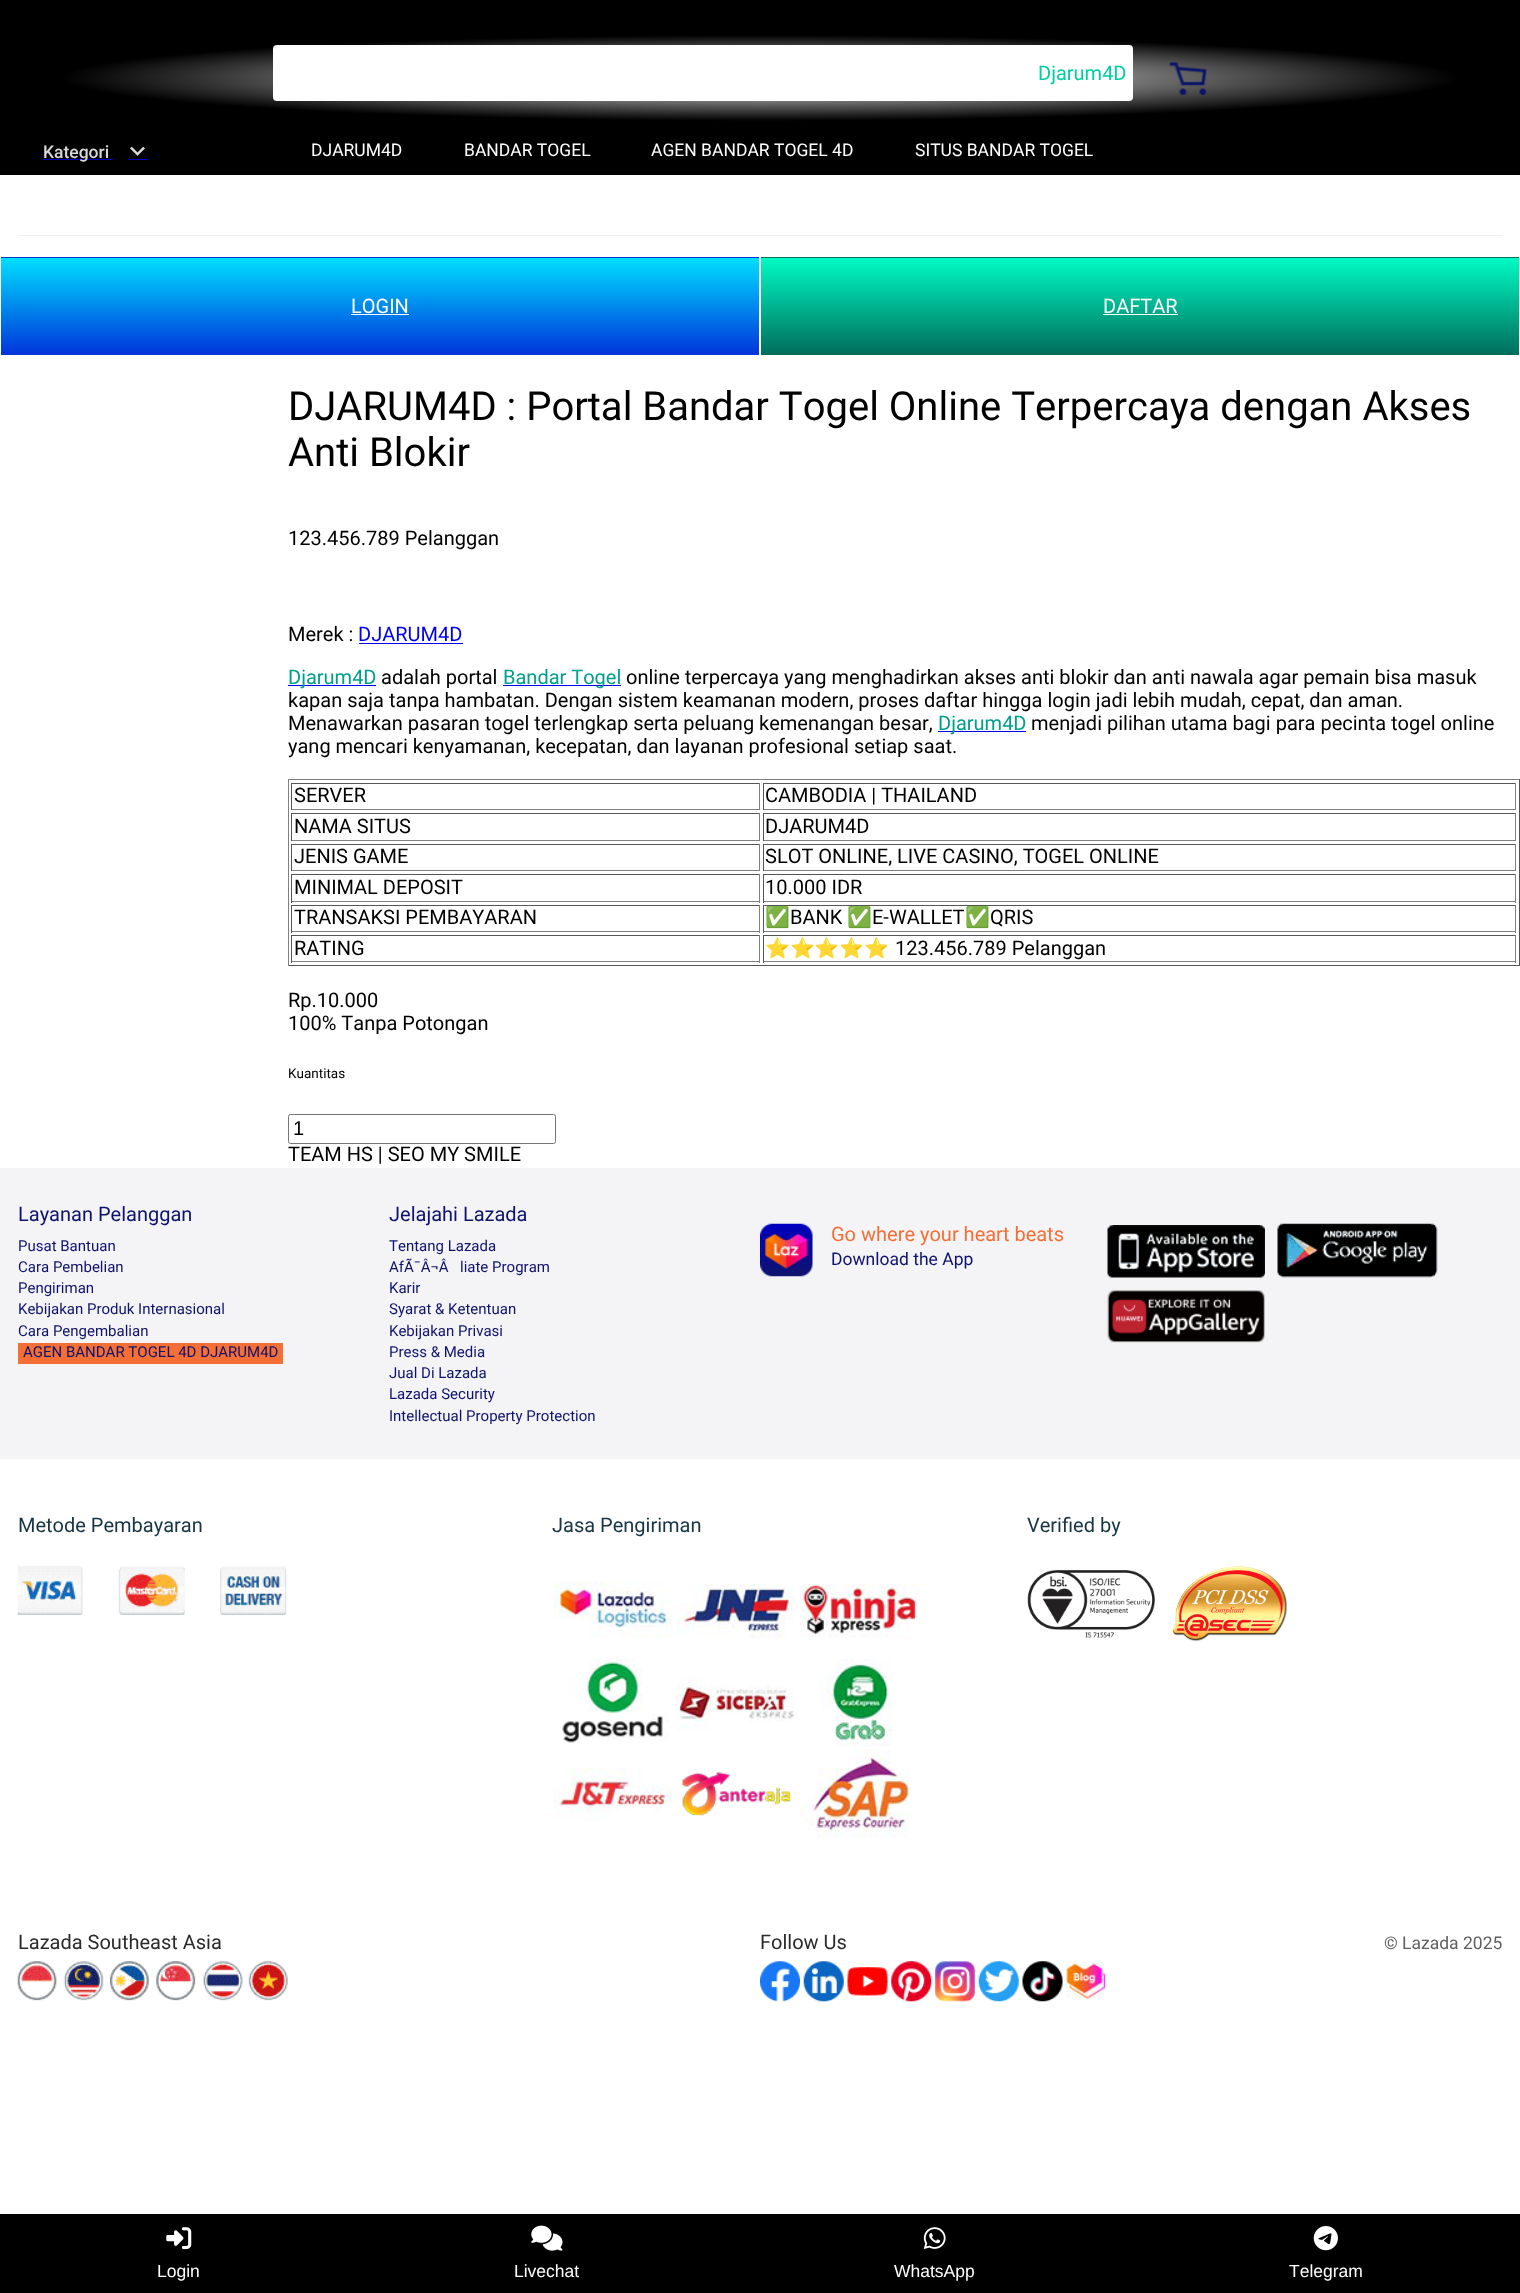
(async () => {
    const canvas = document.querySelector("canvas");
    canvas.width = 1520;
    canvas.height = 2293;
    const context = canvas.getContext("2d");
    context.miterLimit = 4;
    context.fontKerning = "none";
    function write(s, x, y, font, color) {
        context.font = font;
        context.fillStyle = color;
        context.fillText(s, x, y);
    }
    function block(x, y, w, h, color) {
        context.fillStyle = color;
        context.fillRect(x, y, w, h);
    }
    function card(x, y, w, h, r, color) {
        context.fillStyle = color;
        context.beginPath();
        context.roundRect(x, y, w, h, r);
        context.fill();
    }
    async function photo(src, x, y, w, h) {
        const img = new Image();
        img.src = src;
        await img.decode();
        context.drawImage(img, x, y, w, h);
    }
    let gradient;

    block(0, 0, 1520, 2293, "rgb(255, 255, 255)");
    block(0, 0, 1520, 31, "rgb(0, 0, 0)");
    gradient = context.createRadialGradient(760, 1270.45, 0, 760, 1270.45, 1075);
    gradient.addColorStop(0, "rgb(255, 255, 255)");
    gradient.addColorStop(0.65, "rgb(0, 0, 0)");
    context.fillStyle = gradient;
    context.beginPath();
    context.rect(0, 31, 1520, 94);
    context.save();
    context.clip();
    context.scale(1, 66 / 1075);
    context.fillRect(0, 0, 1520, 37349);
    context.restore();
    card(273, 45, 860, 56, 4, "rgb(255, 255, 255)");
    write("Djarum4D", 1038, 80, "20px Roboto", "rgb(0, 207, 162)");
    await photo("media/1.png", 1169, 62, 38, 33);
    block(0, 125, 1520, 50, "rgb(0, 0, 0)");
    block(43, 159, 70, 1, "rgb(0, 0, 202)");
    write("Kategori", 43, 158, "500 17.5px Roboto", "rgb(217, 217, 217)");
    block(128, 159, 20, 1, "rgb(0, 0, 202)");
    await photo("media/2.png", 130, 146, 15, 10);
    write("DJARUM4D", 311, 156, "17.5px Roboto", "rgb(255, 255, 255)");
    write("BANDAR TOGEL", 464, 156, "17.5px Roboto", "rgb(255, 255, 255)");
    write("AGEN BANDAR TOGEL 4D", 651, 156, "17.5px Roboto", "rgb(255, 255, 255)");
    write("SITUS BANDAR TOGEL", 915, 156, "17.5px Roboto", "rgb(255, 255, 255)");
    block(18, 235, 1485, 1, "rgb(239, 240, 245)");
    gradient = context.createLinearGradient(380, 160, 380, 258);
    gradient.addColorStop(0, "rgb(0, 225, 255)");
    gradient.addColorStop(1, "rgb(0, 51, 219)");
    context.fillStyle = gradient;
    context.fillRect(0, 257, 760, 1);
    gradient = context.createLinearGradient(380, 257, 380, 355);
    gradient.addColorStop(0, "rgb(0, 225, 255)");
    gradient.addColorStop(1, "rgb(0, 51, 219)");
    context.fillStyle = gradient;
    context.fillRect(1, 258, 758, 97);
    context.strokeStyle = "rgb(255, 255, 255)";
    context.strokeRect(0.5, 256.5, 759, 99);
    write("LOGIN", 351, 313, "20px Roboto", "rgb(255, 255, 255)");
    block(351, 314, 58, 1, "rgb(255, 255, 255)");
    gradient = context.createLinearGradient(1140, 160, 1140, 258);
    gradient.addColorStop(0, "rgb(0, 252, 197)");
    gradient.addColorStop(1, "rgb(0, 109, 91)");
    context.fillStyle = gradient;
    context.fillRect(760, 257, 760, 1);
    gradient = context.createLinearGradient(1140, 257, 1140, 355);
    gradient.addColorStop(0, "rgb(0, 252, 197)");
    gradient.addColorStop(1, "rgb(0, 109, 91)");
    context.fillStyle = gradient;
    context.fillRect(761, 258, 758, 97);
    context.strokeRect(760.5, 256.5, 759, 99);
    write("DAFTAR", 1103, 313, "20px Roboto", "rgb(255, 255, 255)");
    block(1103, 314, 75, 1, "rgb(255, 255, 255)");
    write("DJARUM4D : Portal Bandar Togel Online Terpercaya dengan Akses", 288, 420, "40px Roboto", "rgb(0, 0, 0)");
    write("Anti Blokir", 288, 466, "40px Roboto", "rgb(0, 0, 0)");
    write("123.456.789 Pelanggan", 288, 545, "20px Roboto", "rgb(0, 0, 0)");
    write("Merek :", 288, 641, "20px Roboto", "rgb(0, 0, 0)");
    write("DJARUM4D", 358, 641, "20px Roboto", "rgb(0, 0, 238)");
    block(359, 643, 104, 1, "rgb(0, 0, 238)");
    block(288, 685, 88, 1, "rgb(0, 0, 238)");
    write("Djarum4D", 288, 684, "20px Roboto", "rgb(0, 160, 139)");
    write("adalah portal", 381, 684, "20px Roboto", "rgb(0, 0, 0)");
    block(503, 685, 118, 1, "rgb(0, 0, 238)");
    write("Bandar Togel", 503, 684, "20px Roboto", "rgb(0, 160, 139)");
    write("online terpercaya yang menghadirkan akses anti blokir dan anti nawala agar pemain bisa masuk", 626, 684, "20px Roboto", "rgb(0, 0, 0)");
    write("kapan saja tanpa hambatan. Dengan sistem keamanan modern, proses daftar hingga login jadi lebih mudah, cepat, dan aman.", 288, 707, "20px Roboto", "rgb(0, 0, 0)");
    write("Menawarkan pasaran togel terlengkap serta peluang kemenangan besar,", 288, 730, "20px Roboto", "rgb(0, 0, 0)");
    block(938, 731, 88, 1, "rgb(0, 0, 238)");
    write("Djarum4D", 938, 730, "20px Roboto", "rgb(0, 160, 139)");
    write("menjadi pilihan utama bagi para pecinta togel online", 1031, 730, "20px Roboto", "rgb(0, 0, 0)");
    write("yang mencari kenyamanan, kecepatan, dan layanan profesional setiap saat.", 288, 753, "20px Roboto", "rgb(0, 0, 0)");
    block(288, 779, 1232, 1, "rgb(128, 128, 128)");
    block(1519, 779, 1, 187, "rgb(85, 85, 85)");
    block(288, 965, 1232, 1, "rgb(85, 85, 85)");
    block(288, 779, 1, 187, "rgb(128, 128, 128)");
    block(291, 783, 469, 1, "rgb(85, 85, 85)");
    block(759, 783, 1, 27, "rgb(128, 128, 128)");
    block(291, 809, 469, 1, "rgb(128, 128, 128)");
    block(291, 783, 1, 27, "rgb(85, 85, 85)");
    write("SERVER", 294, 802, "20px Roboto", "rgb(0, 0, 0)");
    block(763, 783, 753, 1, "rgb(85, 85, 85)");
    block(1515, 783, 1, 27, "rgb(128, 128, 128)");
    block(763, 809, 753, 1, "rgb(128, 128, 128)");
    block(763, 783, 1, 27, "rgb(85, 85, 85)");
    write("CAMBODIA | THAILAND", 765, 802, "20px Roboto", "rgb(0, 0, 0)");
    block(291, 813, 469, 1, "rgb(85, 85, 85)");
    block(759, 813, 1, 28, "rgb(128, 128, 128)");
    block(291, 840, 469, 1, "rgb(128, 128, 128)");
    block(291, 813, 1, 28, "rgb(85, 85, 85)");
    write("NAMA SITUS", 294, 833, "20px Roboto", "rgb(0, 0, 0)");
    block(763, 813, 753, 1, "rgb(85, 85, 85)");
    block(1515, 813, 1, 28, "rgb(128, 128, 128)");
    block(763, 840, 753, 1, "rgb(128, 128, 128)");
    block(763, 813, 1, 28, "rgb(85, 85, 85)");
    write("DJARUM4D", 765, 833, "20px Roboto", "rgb(0, 0, 0)");
    block(291, 844, 469, 1, "rgb(85, 85, 85)");
    block(759, 844, 1, 27, "rgb(128, 128, 128)");
    block(291, 870, 469, 1, "rgb(128, 128, 128)");
    block(291, 844, 1, 27, "rgb(85, 85, 85)");
    write("JENIS GAME", 294, 863, "20px Roboto", "rgb(0, 0, 0)");
    block(763, 844, 753, 1, "rgb(85, 85, 85)");
    block(1515, 844, 1, 27, "rgb(128, 128, 128)");
    block(763, 870, 753, 1, "rgb(128, 128, 128)");
    block(763, 844, 1, 27, "rgb(85, 85, 85)");
    write("SLOT ONLINE, LIVE CASINO, TOGEL ONLINE", 765, 863, "20px Roboto", "rgb(0, 0, 0)");
    block(291, 874, 469, 1, "rgb(85, 85, 85)");
    block(759, 874, 1, 29, "rgb(128, 128, 128)");
    block(291, 901, 469, 1, "rgb(128, 128, 128)");
    block(291, 874, 1, 29, "rgb(85, 85, 85)");
    write("MINIMAL DEPOSIT", 294, 894, "20px Roboto", "rgb(0, 0, 0)");
    block(763, 874, 753, 1, "rgb(85, 85, 85)");
    block(1515, 874, 1, 29, "rgb(128, 128, 128)");
    block(763, 901, 753, 1, "rgb(128, 128, 128)");
    block(763, 874, 1, 29, "rgb(85, 85, 85)");
    write("10.000 IDR", 765, 894, "20px Roboto", "rgb(0, 0, 0)");
    block(291, 905, 469, 1, "rgb(85, 85, 85)");
    block(759, 905, 1, 28, "rgb(128, 128, 128)");
    block(291, 931, 469, 1, "rgb(128, 128, 128)");
    block(291, 905, 1, 28, "rgb(85, 85, 85)");
    write("TRANSAKSI PEMBAYARAN", 294, 924, "20px Roboto", "rgb(0, 0, 0)");
    block(763, 905, 753, 1, "rgb(85, 85, 85)");
    block(1515, 905, 1, 28, "rgb(128, 128, 128)");
    block(763, 931, 753, 1, "rgb(128, 128, 128)");
    block(763, 905, 1, 28, "rgb(85, 85, 85)");
    write("✅", 765, 924, "bold 20px Noto Color Emoji", "rgb(0, 0, 0)");
    write("BANK", 790, 924, "20px Roboto", "rgb(0, 0, 0)");
    write("✅", 847, 924, "bold 20px Noto Color Emoji", "rgb(0, 0, 0)");
    write("E-WALLET", 872, 924, "20px Roboto", "rgb(0, 0, 0)");
    write("✅", 965, 924, "bold 20px Noto Color Emoji", "rgb(0, 0, 0)");
    write("QRIS", 990, 924, "20px Roboto", "rgb(0, 0, 0)");
    block(291, 935, 469, 1, "rgb(85, 85, 85)");
    block(759, 935, 1, 28, "rgb(128, 128, 128)");
    block(291, 961, 469, 1, "rgb(128, 128, 128)");
    block(291, 935, 1, 28, "rgb(85, 85, 85)");
    write("RATING", 294, 955, "20px Roboto", "rgb(0, 0, 0)");
    block(763, 935, 753, 1, "rgb(85, 85, 85)");
    block(1515, 935, 1, 28, "rgb(128, 128, 128)");
    block(763, 961, 753, 1, "rgb(128, 128, 128)");
    block(763, 935, 1, 28, "rgb(85, 85, 85)");
    write("⭐⭐⭐⭐⭐", 765, 955, "bold 20px Noto Color Emoji", "rgb(0, 0, 0)");
    write("123.456.789 Pelanggan", 895, 955, "20px Roboto", "rgb(0, 0, 0)");
    write("Rp.10.000", 288, 1007, "20px Roboto", "rgb(0, 0, 0)");
    write("100% Tanpa Potongan", 288, 1030, "20px Roboto", "rgb(0, 0, 0)");
    write("Kuantitas", 288, 1078, "13.5px Roboto", "rgb(0, 0, 0)");
    context.beginPath();
    context.roundRect(288.5, 1114.5, 267, 29, 2);
    context.strokeStyle = "rgb(118, 118, 118)";
    context.stroke();
    write("1", 293, 1135, "20px Liberation Sans", "rgb(0, 0, 0)");
    write("TEAM HS | SEO MY SMILE", 288, 1161, "20px Roboto", "rgb(0, 0, 0)");
    block(0, 1168, 1520, 291, "rgb(244, 244, 246)");
    write("Layanan Pelanggan", 18, 1221, "20px Roboto", "rgb(15, 19, 109)");
    write("Pusat Bantuan", 18, 1251, "15px Roboto", "rgb(15, 19, 109)");
    write("Cara Pembelian", 18, 1272, "15px Roboto", "rgb(15, 19, 109)");
    write("Pengiriman", 18, 1293, "15px Roboto", "rgb(15, 19, 109)");
    write("Kebijakan Produk Internasional", 18, 1314, "15px Roboto", "rgb(15, 19, 109)");
    write("Cara Pengembalian", 18, 1336, "15px Roboto", "rgb(15, 19, 109)");
    block(18, 1343, 265, 21, "rgb(243, 111, 54)");
    write("AGEN BANDAR TOGEL 4D DJARUM4D", 23, 1357, "15px Roboto", "rgb(15, 19, 109)");
    write("Jelajahi Lazada", 389, 1221, "20px Roboto", "rgb(15, 19, 109)");
    write("Tentang Lazada", 389, 1251, "15px Roboto", "rgb(15, 19, 109)");
    write("AfÃ¯Â¬Â", 389, 1272, "15px Roboto", "rgb(15, 19, 109)");
    write("liate Program", 460, 1272, "15px Roboto", "rgb(15, 19, 109)");
    write("Karir", 389, 1293, "15px Roboto", "rgb(15, 19, 109)");
    write("Syarat & Ketentuan", 389, 1314, "15px Roboto", "rgb(15, 19, 109)");
    write("Kebijakan Privasi", 389, 1336, "15px Roboto", "rgb(15, 19, 109)");
    write("Press & Media", 389, 1357, "15px Roboto", "rgb(15, 19, 109)");
    write("Jual Di Lazada", 389, 1378, "15px Roboto", "rgb(15, 19, 109)");
    write("Lazada Security", 389, 1399, "15px Roboto", "rgb(15, 19, 109)");
    write("Intellectual Property Protection", 389, 1421, "15px Roboto", "rgb(15, 19, 109)");
    await photo("media/3.png", 760, 1223, 53, 54);
    write("Go where your heart beats", 831, 1241, "20px Roboto", "rgb(243, 111, 54)");
    write("Download the App", 831, 1265, "17.5px Roboto", "rgb(15, 19, 109)");
    await photo("media/4.png", 1107, 1225, 158, 53);
    await photo("media/5.png", 1277, 1223, 161, 55);
    await photo("media/6.png", 1107, 1290, 158, 53);
    write("Metode Pembayaran", 18, 1532, "20px Roboto", "rgb(24, 53, 68)");
    await photo("media/7.png", 17, 1566, 66, 49);
    await photo("media/8.png", 118, 1566, 67, 49);
    await photo("media/9.png", 220, 1566, 67, 49);
    write("Jasa Pengiriman", 552, 1532, "20px Roboto", "rgb(24, 53, 68)");
    await photo("media/10.png", 553, 1581, 120, 57);
    await photo("media/11.png", 676, 1584, 120, 55);
    await photo("media/12.png", 800, 1583, 120, 55);
    await photo("media/13.png", 562, 1658, 107, 85);
    await photo("media/14.png", 676, 1676, 118, 55);
    await photo("media/15.png", 818, 1659, 74, 88);
    await photo("media/16.png", 553, 1768, 120, 53);
    await photo("media/17.png", 682, 1772, 109, 44);
    await photo("media/18.png", 800, 1750, 109, 88);
    write("Verified by", 1027, 1532, "20px Roboto", "rgb(24, 53, 68)");
    await photo("media/19.png", 1027, 1570, 128, 68);
    await photo("media/20.png", 1172, 1566, 116, 76);
    write("Lazada Southeast Asia", 18, 1949, "20px Roboto", "rgb(42, 42, 42)");
    await photo("media/21.png", 17, 1961, 40, 40);
    await photo("media/22.png", 63, 1961, 41, 40);
    await photo("media/23.png", 110, 1961, 39, 40);
    await photo("media/24.png", 156, 1961, 40, 40);
    await photo("media/25.png", 203, 1961, 40, 40);
    await photo("media/26.png", 248, 1961, 40, 40);
    write("Follow Us", 760, 1949, "20px Roboto", "rgb(42, 42, 42)");
    await photo("media/27.png", 760, 1961, 40, 41);
    await photo("media/28.png", 803, 1961, 41, 41);
    await photo("media/29.png", 847, 1967, 41, 29);
    await photo("media/30.png", 891, 1961, 41, 41);
    await photo("media/31.png", 935, 1961, 40, 41);
    await photo("media/32.png", 978, 1961, 41, 41);
    await photo("media/33.png", 1022, 1961, 41, 41);
    await photo("media/34.png", 1066, 1961, 41, 38);
    write("© Lazada 2025", 1384, 1949, "17.5px Roboto", "rgb(96, 96, 96)");
    block(0, 2214, 1520, 79, "rgb(0, 0, 0)");
    await photo("media/35.png", 166, 2227, 26, 23);
    write("Login", 157, 2277, "17.5px Liberation Sans", "rgb(255, 255, 255)");
    await photo("media/36.png", 531, 2225, 32, 26);
    write("Livechat", 514, 2277, "17.5px Liberation Sans", "rgb(255, 255, 255)");
    await photo("media/37.png", 923, 2227, 23, 22);
    write("WhatsApp", 894, 2277, "17.5px Liberation Sans", "rgb(255, 255, 255)");
    await photo("media/38.png", 1313, 2226, 25, 25);
    write("Telegram", 1289, 2277, "17.5px Liberation Sans", "rgb(255, 255, 255)");
})();
